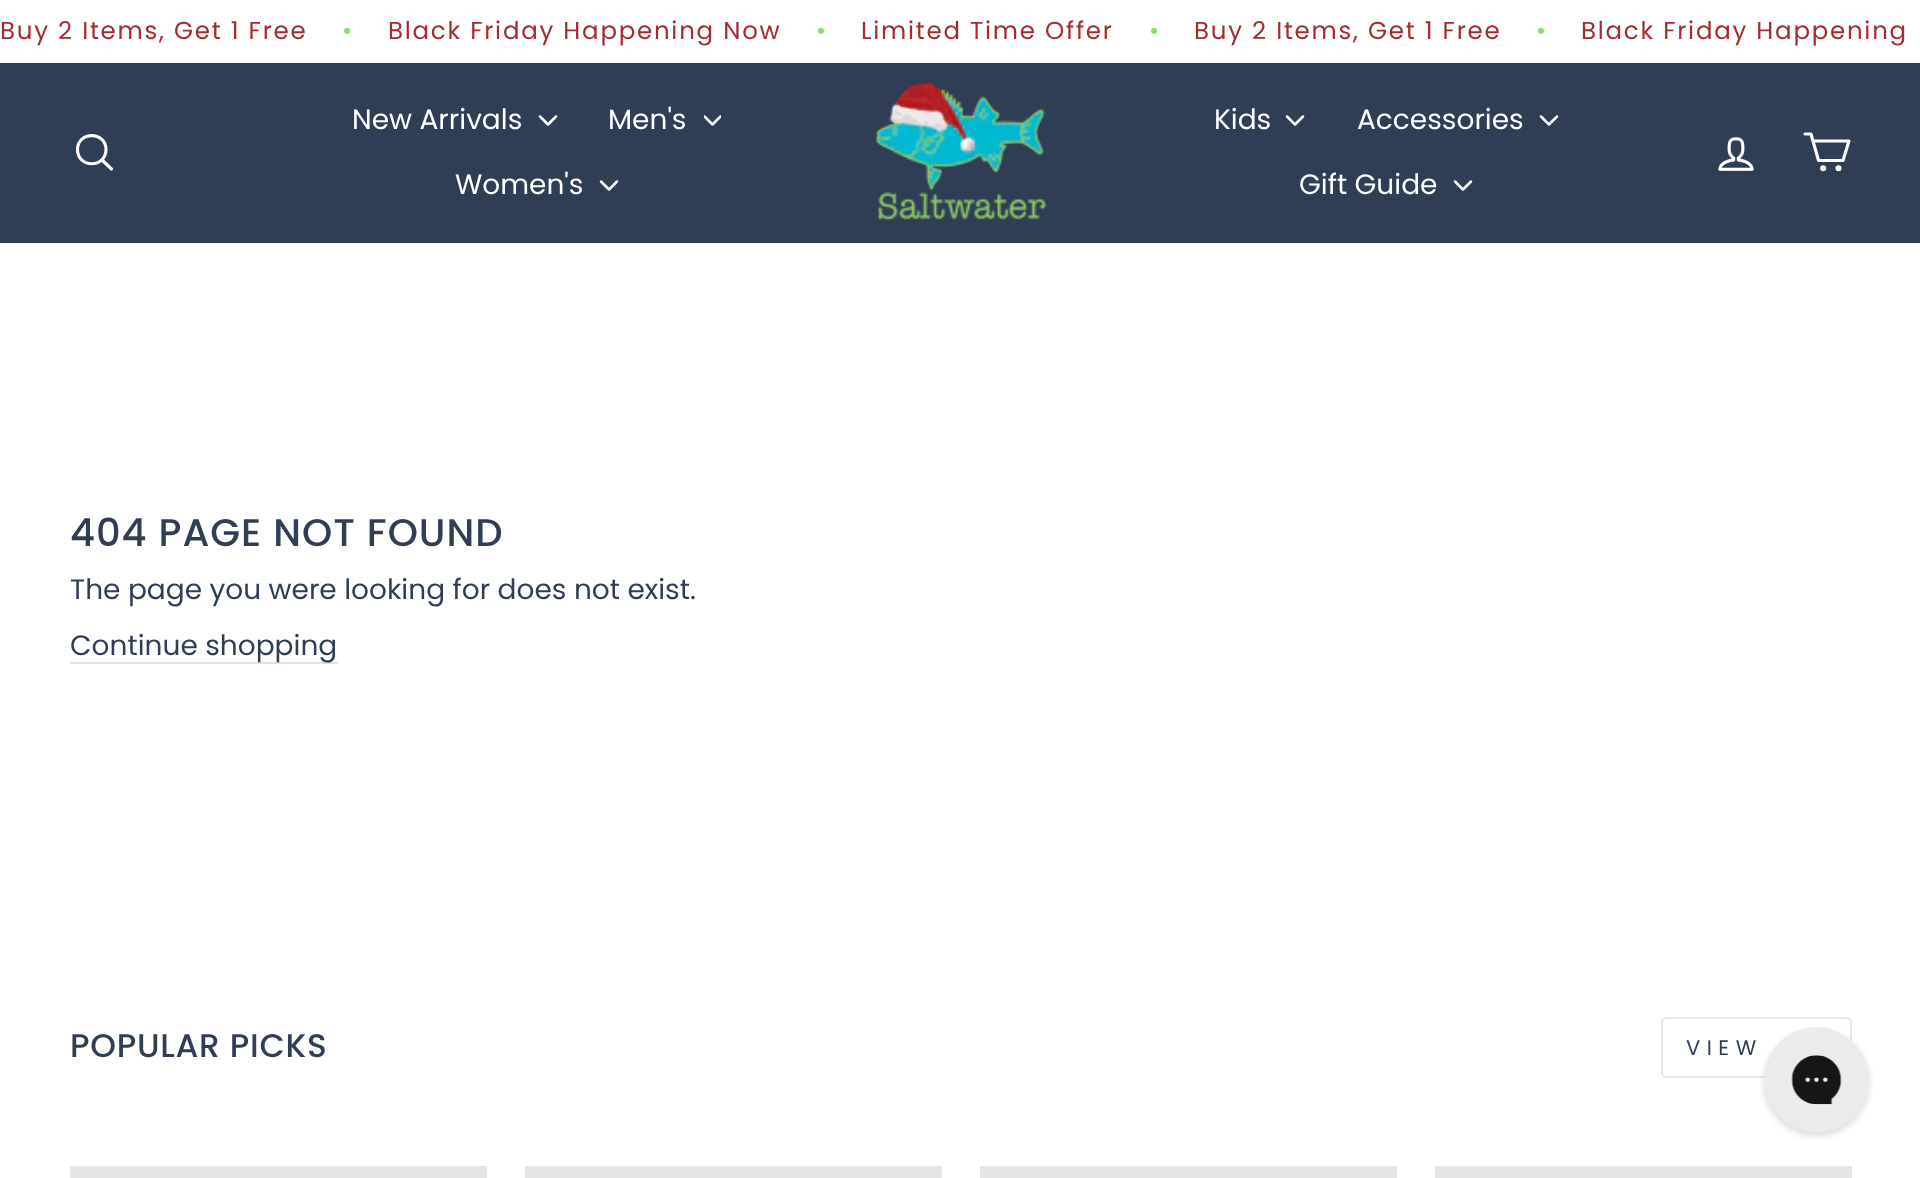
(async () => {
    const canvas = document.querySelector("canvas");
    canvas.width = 1920;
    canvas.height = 1178;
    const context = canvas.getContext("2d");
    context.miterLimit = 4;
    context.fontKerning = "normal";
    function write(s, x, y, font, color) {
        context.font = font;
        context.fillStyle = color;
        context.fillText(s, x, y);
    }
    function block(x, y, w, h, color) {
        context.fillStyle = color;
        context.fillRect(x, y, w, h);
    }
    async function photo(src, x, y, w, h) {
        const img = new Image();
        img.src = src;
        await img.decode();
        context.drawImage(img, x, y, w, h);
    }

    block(0, 0, 1920, 1178, "rgb(255, 255, 255)");
    context.letterSpacing = "1.75px";
    write("Buy 2 Items, Get 1 Free", 0, 39, "24.5px Poppins", "rgb(164, 44, 46)");
    context.letterSpacing = "0px";
    write("•", 342, 39, "24.5px Poppins", "rgb(137, 220, 101)");
    context.letterSpacing = "1.75px";
    write("Black Friday Happening Now", 388, 39, "24.5px Poppins", "rgb(164, 44, 46)");
    context.letterSpacing = "0px";
    write("•", 816, 39, "24.5px Poppins", "rgb(137, 220, 101)");
    context.letterSpacing = "1.75px";
    write("Limited Time Offer", 861, 39, "24.5px Poppins", "rgb(164, 44, 46)");
    context.letterSpacing = "0px";
    write("•", 1149, 39, "24.5px Poppins", "rgb(137, 220, 101)");
    context.letterSpacing = "1.75px";
    write("Buy 2 Items, Get 1 Free", 1194, 39, "24.5px Poppins", "rgb(164, 44, 46)");
    context.letterSpacing = "0px";
    write("•", 1536, 39, "24.5px Poppins", "rgb(137, 220, 101)");
    context.letterSpacing = "1.75px";
    write("Black Friday Happening", 1581, 39, "24.5px Poppins", "rgb(164, 44, 46)");
    block(0, 63, 1920, 180, "rgb(48, 62, 85)");
    context.beginPath();
    context.moveTo(106, 149.5);
    context.bezierCurveTo(106, 168.5, 77.5, 168.5, 77.5, 149.5);
    context.bezierCurveTo(77.5, 131, 106, 131, 106, 149.5);
    context.closePath();
    context.moveTo(111.5, 169);
    context.lineTo(102, 160);
    context.strokeStyle = "rgb(255, 255, 255)";
    context.lineWidth = 3.1;
    context.lineCap = "round";
    context.lineJoin = "round";
    context.stroke();
    context.letterSpacing = "0px";
    write("New Arrivals", 352, 129, "28px Poppins", "rgb(255, 255, 255)");
    context.beginPath();
    context.moveTo(540, 116.5);
    context.lineTo(548, 124.5);
    context.lineTo(556, 116.5);
    context.lineWidth = 2.5;
    context.stroke();
    write("Men's", 608, 129, "28px Poppins", "rgb(255, 255, 255)");
    context.save();
    context.beginPath();
    context.rect(704, 112, 17, 18);
    context.clip();
    context.beginPath();
    context.moveTo(704.5, 116.5);
    context.lineTo(712.5, 124.5);
    context.lineTo(720.5, 116.5);
    context.stroke();
    context.restore();
    write("Women's", 455, 194, "28px Poppins", "rgb(255, 255, 255)");
    context.beginPath();
    context.moveTo(601, 181.5);
    context.lineTo(609, 189.5);
    context.lineTo(617, 181.5);
    context.stroke();
    await photo("media/1.png", 875, 82, 172, 139);
    write("Kids", 1214, 129, "28px Poppins", "rgb(255, 255, 255)");
    context.beginPath();
    context.moveTo(1287, 116.5);
    context.lineTo(1295, 124.5);
    context.lineTo(1303, 116.5);
    context.stroke();
    write("Accessories", 1357, 129, "28px Poppins", "rgb(255, 255, 255)");
    context.beginPath();
    context.moveTo(1541, 116.5);
    context.lineTo(1549, 124.5);
    context.lineTo(1557, 116.5);
    context.stroke();
    write("Gift Guide", 1299, 194, "28px Poppins", "rgb(255, 255, 255)");
    context.beginPath();
    context.moveTo(1455, 181.5);
    context.lineTo(1463, 189.5);
    context.lineTo(1471, 181.5);
    context.stroke();
    await photo("media/2.png", 1718, 137, 36, 34);
    context.beginPath();
    context.moveTo(1813, 141);
    context.lineTo(1849, 141);
    context.lineTo(1843, 160.5);
    context.lineTo(1818.5, 160.5);
    context.lineTo(1811, 134);
    context.lineTo(1805, 134);
    context.lineWidth = 3.1;
    context.stroke();
    context.beginPath();
    context.arc(1823.2, 168.3, 1.5, 0, Math.PI * 2);
    context.stroke();
    context.beginPath();
    context.arc(1838.5, 168.3, 1.5, 0, Math.PI * 2);
    context.stroke();
    context.letterSpacing = "1px";
    write("404 PAGE NOT FOUND", 70, 546, "500 38.5px Poppins", "rgb(48, 62, 85)");
    context.letterSpacing = "0px";
    write("The page you were looking for does not exist.", 70, 599, "28px Poppins", "rgb(48, 62, 85)");
    block(70, 662, 268, 2, "rgb(224, 226, 230)");
    write("Continue shopping", 70, 655, "28px Poppins", "rgb(48, 62, 85)");
    context.letterSpacing = "0.75px";
    write("POPULAR PICKS", 70, 1057, "500 32.75px Poppins", "rgb(48, 62, 85)");
    context.beginPath();
    context.roundRect(1662, 1018, 189, 59, 4);
    context.strokeStyle = "rgb(232, 232, 225)";
    context.lineWidth = 2;
    context.lineJoin = "miter";
    context.stroke();
    context.letterSpacing = "6.5px";
    write("VIEW", 1686, 1055, "21px Poppins", "rgb(48, 62, 85)");
    block(70, 1166, 417, 12, "rgb(229, 229, 229)");
    block(525, 1166, 417, 12, "rgb(229, 229, 229)");
    block(980, 1166, 417, 12, "rgb(229, 229, 229)");
    block(1435, 1166, 417, 12, "rgb(229, 229, 229)");
    await photo("media/3.png", 1760, 1027, 113, 112);
})();
